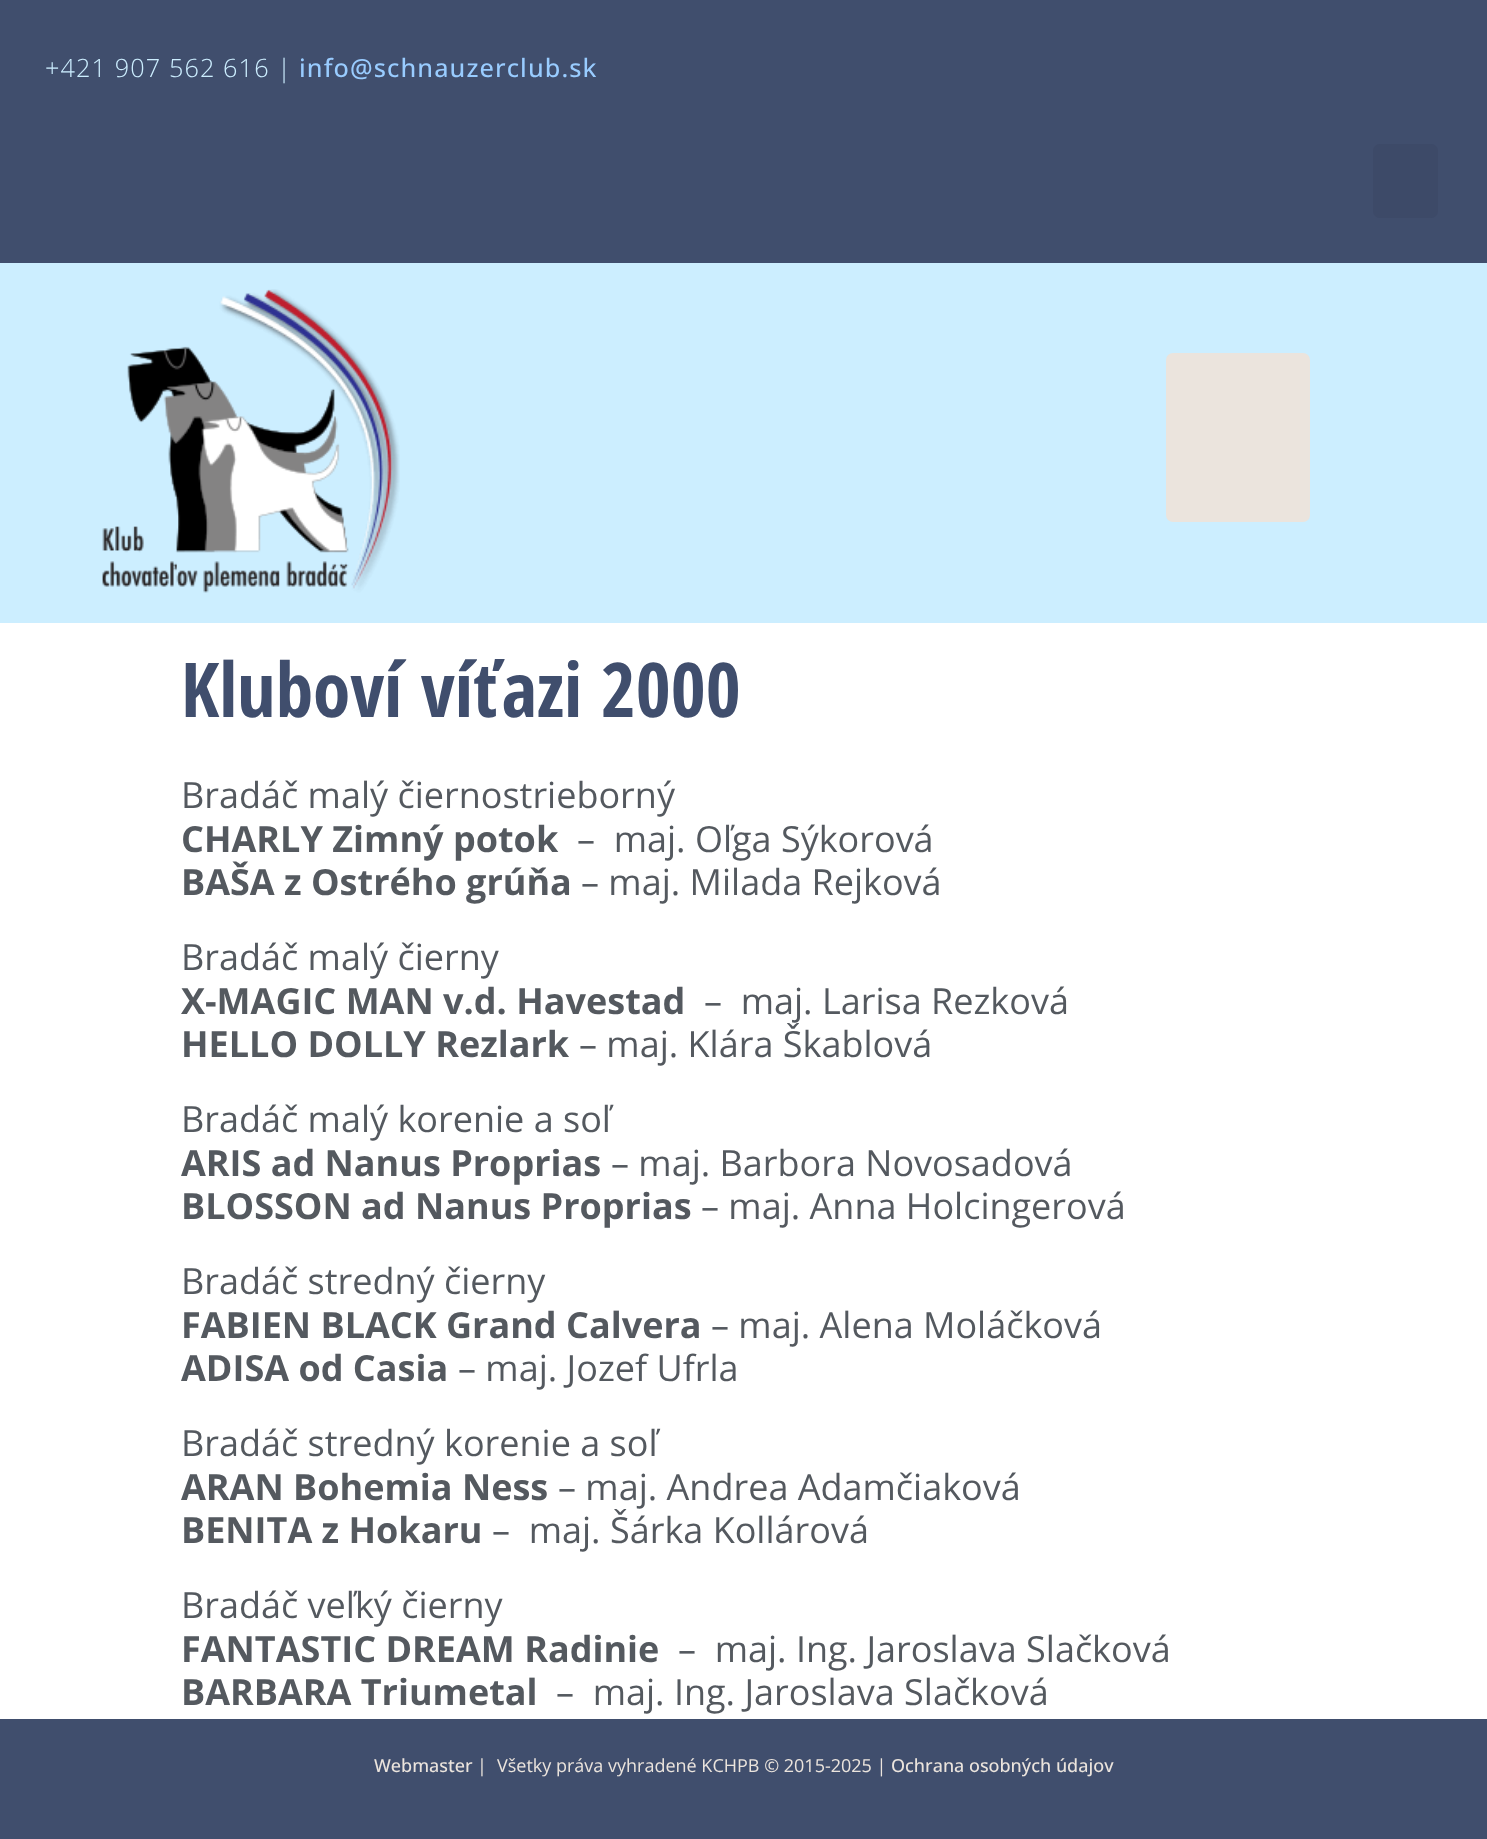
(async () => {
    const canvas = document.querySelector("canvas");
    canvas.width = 1487;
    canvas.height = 1839;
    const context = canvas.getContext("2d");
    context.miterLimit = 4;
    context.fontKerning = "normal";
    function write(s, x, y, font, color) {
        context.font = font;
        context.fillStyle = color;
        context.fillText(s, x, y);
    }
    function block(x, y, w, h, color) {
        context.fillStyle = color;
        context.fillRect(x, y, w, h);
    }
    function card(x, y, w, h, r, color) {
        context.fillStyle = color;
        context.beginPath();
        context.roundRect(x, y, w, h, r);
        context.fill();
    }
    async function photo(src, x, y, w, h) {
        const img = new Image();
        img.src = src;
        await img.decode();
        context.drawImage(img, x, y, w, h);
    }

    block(0, 0, 1487, 1839, "rgb(255, 255, 255)");
    block(0, 0, 1487, 263, "rgb(64, 78, 109)");
    context.letterSpacing = "1.1px";
    write("+421 907 562 616 |", 45, 77, "300 25.25px Open Sans", "rgb(204, 238, 255)");
    write("info@schnauzerclub.sk", 299, 77, "500 25.25px Open Sans", "rgb(153, 204, 255)");
    card(1373, 144, 65, 74, 7, "rgb(61, 74, 104)");
    block(0, 263, 1487, 360, "rgb(204, 238, 255)");
    await photo("media/1.png", 102, 289, 298, 304);
    card(1166, 353, 144, 169, 7, "rgb(235, 228, 221)");
    context.letterSpacing = "0px";
    write("Kluboví víťazi 2000", 181, 717, "bold 75.5px Open Sans Condensed", "rgb(64, 78, 109)");
    write("Bradáč malý čiernostrieborný", 181, 808, "36px Open Sans", "rgb(84, 89, 95)");
    write("CHARLY Zimný potok", 181, 852, "bold 36px Open Sans", "rgb(84, 89, 95)");
    write("–  maj. Oľga Sýkorová", 577, 852, "36px Open Sans", "rgb(84, 89, 95)");
    write("BAŠA z Ostrého grúňa", 181, 895, "bold 36px Open Sans", "rgb(84, 89, 95)");
    write("– maj. Milada Rejková", 581, 895, "36px Open Sans", "rgb(84, 89, 95)");
    write("Bradáč malý čierny", 181, 970, "36px Open Sans", "rgb(84, 89, 95)");
    write("X-MAGIC MAN v.d. Havestad", 181, 1014, "bold 36px Open Sans", "rgb(84, 89, 95)");
    write("–  maj. Larisa Rezková", 704, 1014, "36px Open Sans", "rgb(84, 89, 95)");
    write("HELLO DOLLY Rezlark", 181, 1057, "bold 36px Open Sans", "rgb(84, 89, 95)");
    write("– maj. Klára Škablová", 579, 1057, "36px Open Sans", "rgb(84, 89, 95)");
    write("Bradáč malý korenie a soľ", 181, 1132, "36px Open Sans", "rgb(84, 89, 95)");
    write("ARIS ad Nanus Proprias", 181, 1176, "bold 36px Open Sans", "rgb(84, 89, 95)");
    write("– maj. Barbora Novosadová", 611, 1176, "36px Open Sans", "rgb(84, 89, 95)");
    write("BLOSSON ad Nanus Proprias", 181, 1219, "bold 36px Open Sans", "rgb(84, 89, 95)");
    write("– maj. Anna Holcingerová", 701, 1219, "36px Open Sans", "rgb(84, 89, 95)");
    write("Bradáč stredný čierny", 181, 1294, "36px Open Sans", "rgb(84, 89, 95)");
    write("FABIEN BLACK Grand Calvera", 181, 1338, "bold 36px Open Sans", "rgb(84, 89, 95)");
    write("– maj. Alena Moláčková", 711, 1338, "36px Open Sans", "rgb(84, 89, 95)");
    write("ADISA od Casia", 181, 1381, "bold 36px Open Sans", "rgb(84, 89, 95)");
    write("– maj. Jozef Ufrla", 458, 1381, "36px Open Sans", "rgb(84, 89, 95)");
    write("Bradáč stredný korenie a soľ", 181, 1456, "36px Open Sans", "rgb(84, 89, 95)");
    write("ARAN Bohemia Ness", 181, 1500, "bold 36px Open Sans", "rgb(84, 89, 95)");
    write("– maj. Andrea Adamčiaková", 558, 1500, "36px Open Sans", "rgb(84, 89, 95)");
    write("BENITA z Hokaru", 181, 1543, "bold 36px Open Sans", "rgb(84, 89, 95)");
    write("–  maj. Šárka Kollárová", 492, 1543, "36px Open Sans", "rgb(84, 89, 95)");
    write("Bradáč veľký čierny", 181, 1618, "36px Open Sans", "rgb(84, 89, 95)");
    write("FANTASTIC DREAM Radinie", 181, 1662, "bold 36px Open Sans", "rgb(84, 89, 95)");
    write("–  maj. Ing. Jaroslava Slačková", 678, 1662, "36px Open Sans", "rgb(84, 89, 95)");
    write("BARBARA Triumetal", 181, 1705, "bold 36px Open Sans", "rgb(84, 89, 95)");
    write("–  maj. Ing. Jaroslava Slačková", 556, 1705, "36px Open Sans", "rgb(84, 89, 95)");
    block(0, 1719, 1487, 120, "rgb(64, 78, 109)");
    write("Webmaster", 374, 1772, "500 18px Open Sans", "rgb(235, 228, 221)");
    write("|", 477, 1772, "18px Open Sans", "rgb(235, 228, 221)");
    write("Všetky práva vyhradené KCHPB © 2015-2025 |", 497, 1772, "18px Open Sans", "rgb(235, 228, 221)");
    write("Ochrana osobných údajov", 891, 1772, "500 18px Open Sans", "rgb(235, 228, 221)");
})();
